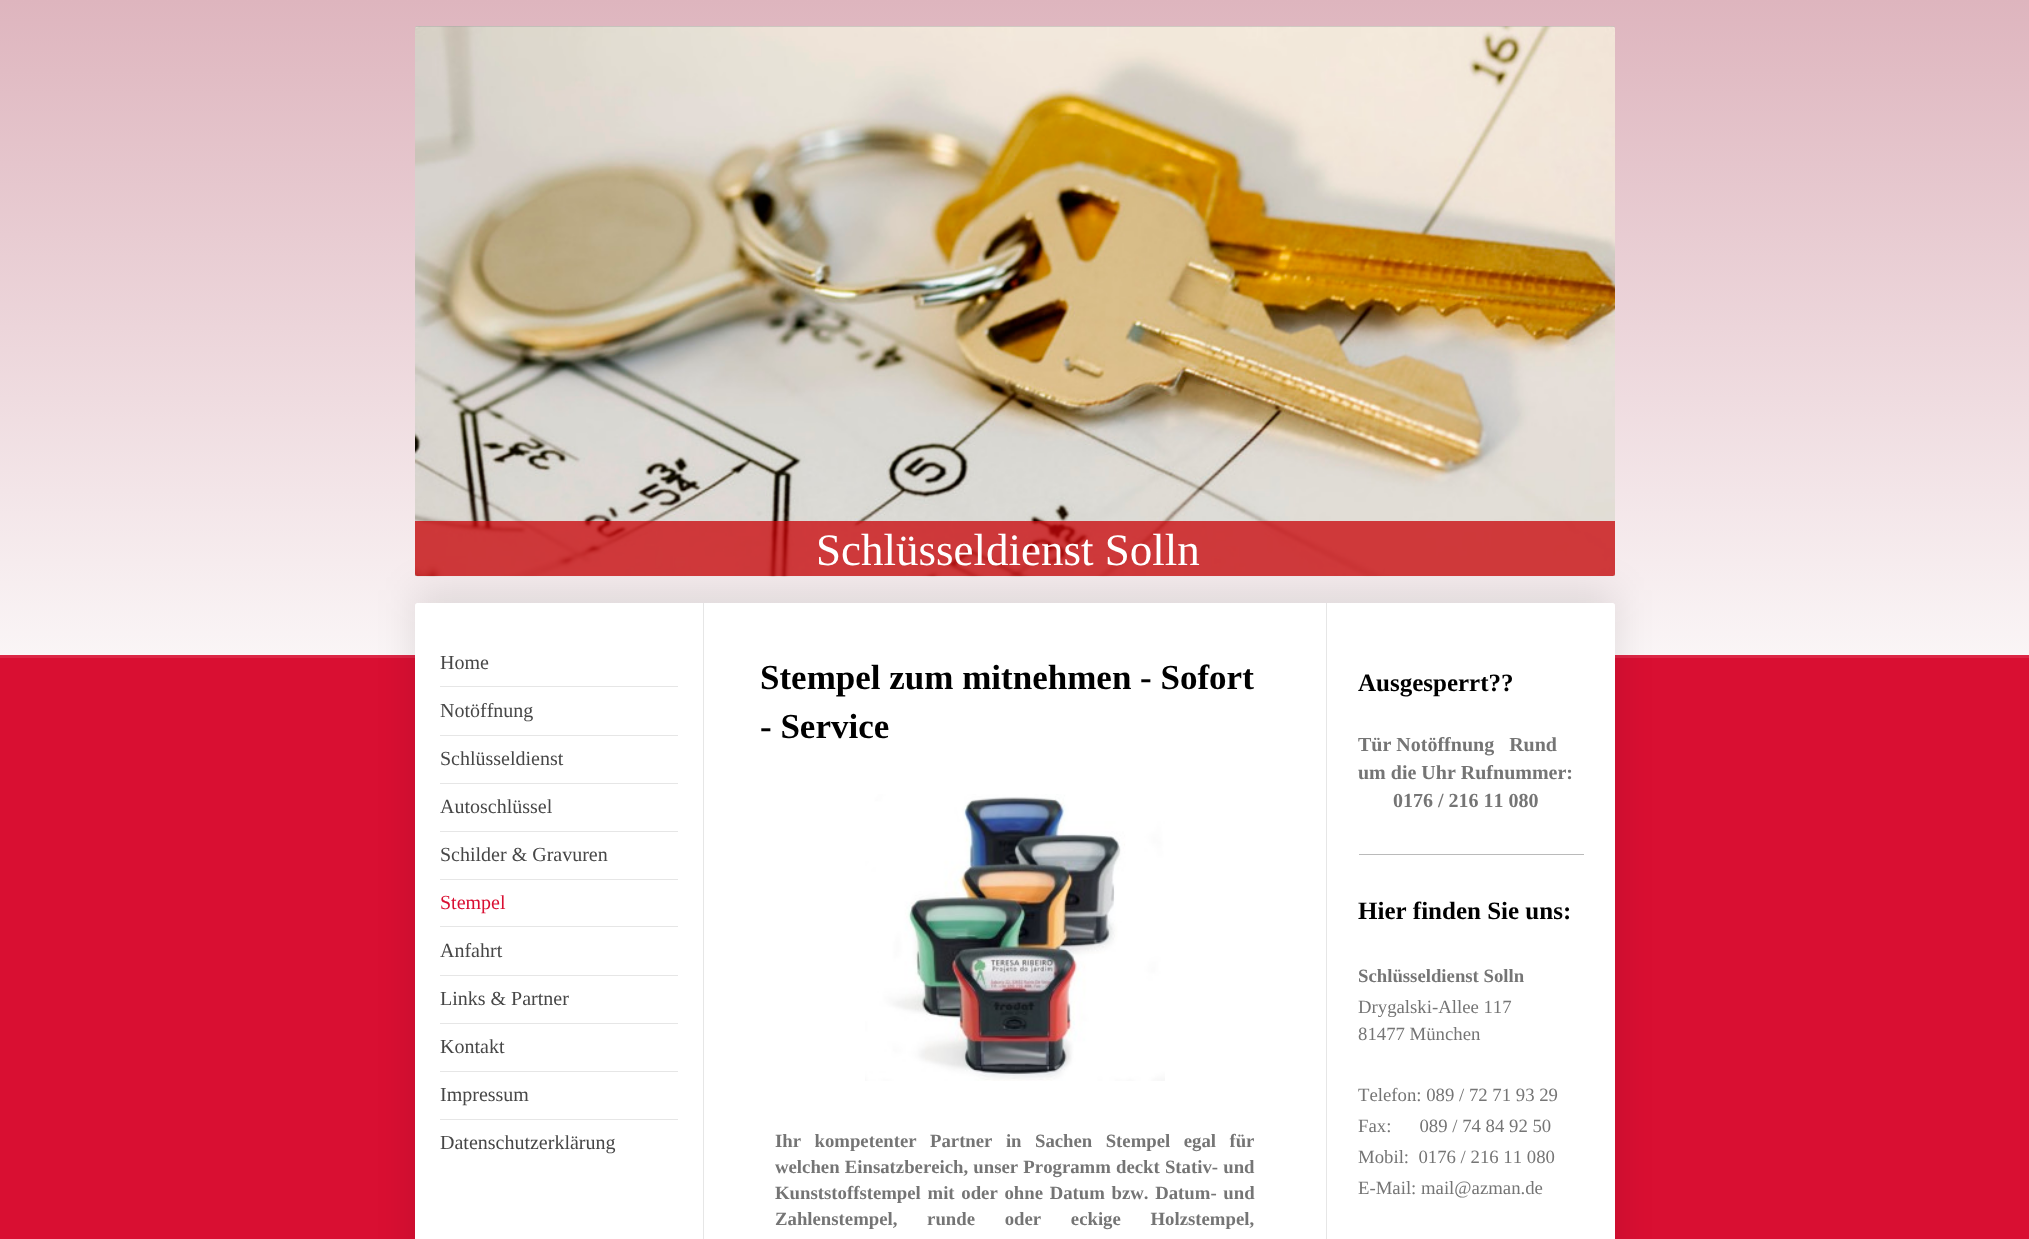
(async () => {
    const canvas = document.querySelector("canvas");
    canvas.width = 2029;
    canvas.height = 1239;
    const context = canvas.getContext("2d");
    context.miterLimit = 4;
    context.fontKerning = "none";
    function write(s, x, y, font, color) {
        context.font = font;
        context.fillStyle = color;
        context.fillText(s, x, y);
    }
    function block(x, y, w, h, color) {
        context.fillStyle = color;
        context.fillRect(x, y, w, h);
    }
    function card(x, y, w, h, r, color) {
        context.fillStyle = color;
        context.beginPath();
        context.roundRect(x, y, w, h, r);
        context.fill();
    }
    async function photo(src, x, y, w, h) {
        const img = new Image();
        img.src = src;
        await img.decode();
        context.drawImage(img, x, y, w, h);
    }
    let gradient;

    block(0, 0, 2029, 1239, "rgb(217, 15, 50)");
    context.fillStyle = "rgba(255, 255, 255, 0.1)";
    context.filter = "blur(0.5px)";
    context.beginPath();
    context.rect(0, 3, 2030, 655);
    context.fill();
    context.filter = "none";
    gradient = context.createLinearGradient(0, 655, 0, 0);
    gradient.addColorStop(0, "rgb(250, 245, 246)");
    gradient.addColorStop(1, "rgb(222, 181, 190)");
    context.fillStyle = gradient;
    context.fillRect(0, 0, 2029, 655);
    await photo("media/1.png", 415, 26, 1200, 551);
    context.fillStyle = "rgba(0, 0, 0, 0.1)";
    context.filter = "blur(19px)";
    context.beginPath();
    context.roundRect(415, 590, 1200, 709, 2.5);
    context.fill();
    context.filter = "none";
    card(415, 26, 1200, 550, 2.5, "rgb(160, 160, 160)");
    await photo("media/2.png", 415, 26, 1200, 551);
    context.fillStyle = "rgba(201, 5, 9, 0.76)";
    context.beginPath();
    context.roundRect(415, 521, 1200, 55, [0, 0, 2.5, 2.5]);
    context.fill();
    write("Schlüsseldienst Solln", 816, 565, "45px Liberation Serif", "rgb(255, 255, 255)");
    card(415, 603, 1200, 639, 2.5, "rgb(255, 255, 255)");
    block(440, 686, 238, 1, "rgb(230, 230, 230)");
    write("Home", 440, 669, "20px Liberation Serif", "rgb(71, 71, 71)");
    block(440, 735, 238, 1, "rgb(230, 230, 230)");
    write("Notöffnung", 440, 717, "20px Liberation Serif", "rgb(71, 71, 71)");
    block(440, 783, 238, 1, "rgb(230, 230, 230)");
    write("Schlüsseldienst", 440, 765, "20px Liberation Serif", "rgb(71, 71, 71)");
    block(440, 831, 238, 1, "rgb(230, 230, 230)");
    write("Autoschlüssel", 440, 813, "20px Liberation Serif", "rgb(71, 71, 71)");
    block(440, 879, 238, 1, "rgb(230, 230, 230)");
    write("Schilder & Gravuren", 440, 861, "20px Liberation Serif", "rgb(71, 71, 71)");
    block(440, 926, 238, 1, "rgb(230, 230, 230)");
    write("Stempel", 440, 909, "20px Liberation Serif", "rgb(217, 15, 50)");
    block(440, 975, 238, 1, "rgb(230, 230, 230)");
    write("Anfahrt", 440, 957, "20px Liberation Serif", "rgb(71, 71, 71)");
    block(440, 1023, 238, 1, "rgb(230, 230, 230)");
    write("Links & Partner", 440, 1005, "20px Liberation Serif", "rgb(71, 71, 71)");
    block(440, 1071, 238, 1, "rgb(230, 230, 230)");
    write("Kontakt", 440, 1053, "20px Liberation Serif", "rgb(71, 71, 71)");
    block(440, 1119, 238, 1, "rgb(230, 230, 230)");
    write("Impressum", 440, 1101, "20px Liberation Serif", "rgb(71, 71, 71)");
    write("Datenschutzerklärung", 440, 1149, "20px Liberation Serif", "rgb(71, 71, 71)");
    block(1326, 603, 1, 636, "rgb(230, 230, 230)");
    block(703, 603, 1, 636, "rgb(230, 230, 230)");
    write("Stempel zum mitnehmen - Sofort", 760, 689, "bold 35px Liberation Serif", "rgb(0, 0, 0)");
    write("- Service", 760, 738, "bold 35px Liberation Serif", "rgb(0, 0, 0)");
    await photo("media/3.png", 865, 794, 300, 287);
    context.wordSpacing = "8.75px";
    write("Ihr kompetenter Partner in Sachen Stempel egal für", 775, 1147, "bold 18.75px Liberation Serif", "rgb(117, 117, 117)");
    context.wordSpacing = "0.5px";
    write("welchen Einsatzbereich, unser Programm deckt Stativ- und", 775, 1173, "bold 18.75px Liberation Serif", "rgb(117, 117, 117)");
    context.wordSpacing = "2px";
    write("Kunststoffstempel mit oder ohne Datum bzw. Datum- und", 775, 1199, "bold 18.75px Liberation Serif", "rgb(117, 117, 117)");
    context.wordSpacing = "25px";
    write("Zahlenstempel, runde oder eckige Holzstempel,", 775, 1225, "bold 18.75px Liberation Serif", "rgb(117, 117, 117)");
    context.wordSpacing = "0px";
    write("Ausgesperrt??", 1358, 691, "bold 25px Liberation Serif", "rgb(0, 0, 0)");
    write("Tür Notöffnung   Rund", 1358, 751, "bold 20px Liberation Serif", "rgb(117, 117, 117)");
    write("um die Uhr Rufnummer:", 1358, 779, "bold 20px Liberation Serif", "rgb(117, 117, 117)");
    write("0176 / 216 11 080", 1393, 807, "bold 20px Liberation Serif", "rgb(117, 117, 117)");
    block(1359, 854, 225, 1, "rgb(186, 186, 186)");
    write("Hier finden Sie uns:", 1358, 919, "bold 25px Liberation Serif", "rgb(0, 0, 0)");
    write("Schlüsseldienst Solln", 1358, 982, "bold 18.75px Liberation Serif", "rgb(117, 117, 117)");
    write("Drygalski-Allee 117", 1358, 1013, "18.75px Liberation Serif", "rgb(117, 117, 117)");
    write("81477 München", 1358, 1040, "18.75px Liberation Serif", "rgb(117, 117, 117)");
    write("Telefon: 089 / 72 71 93 29", 1358, 1101, "18.75px Liberation Serif", "rgb(117, 117, 117)");
    write("Fax:      089 / 74 84 92 50 ", 1358, 1132, "18.75px Liberation Serif", "rgb(117, 117, 117)");
    write("Mobil:  0176 / 216 11 080", 1358, 1163, "18.75px Liberation Serif", "rgb(117, 117, 117)");
    write("E-Mail: mail@azman.de", 1358, 1194, "18.75px Liberation Serif", "rgb(117, 117, 117)");
})();
